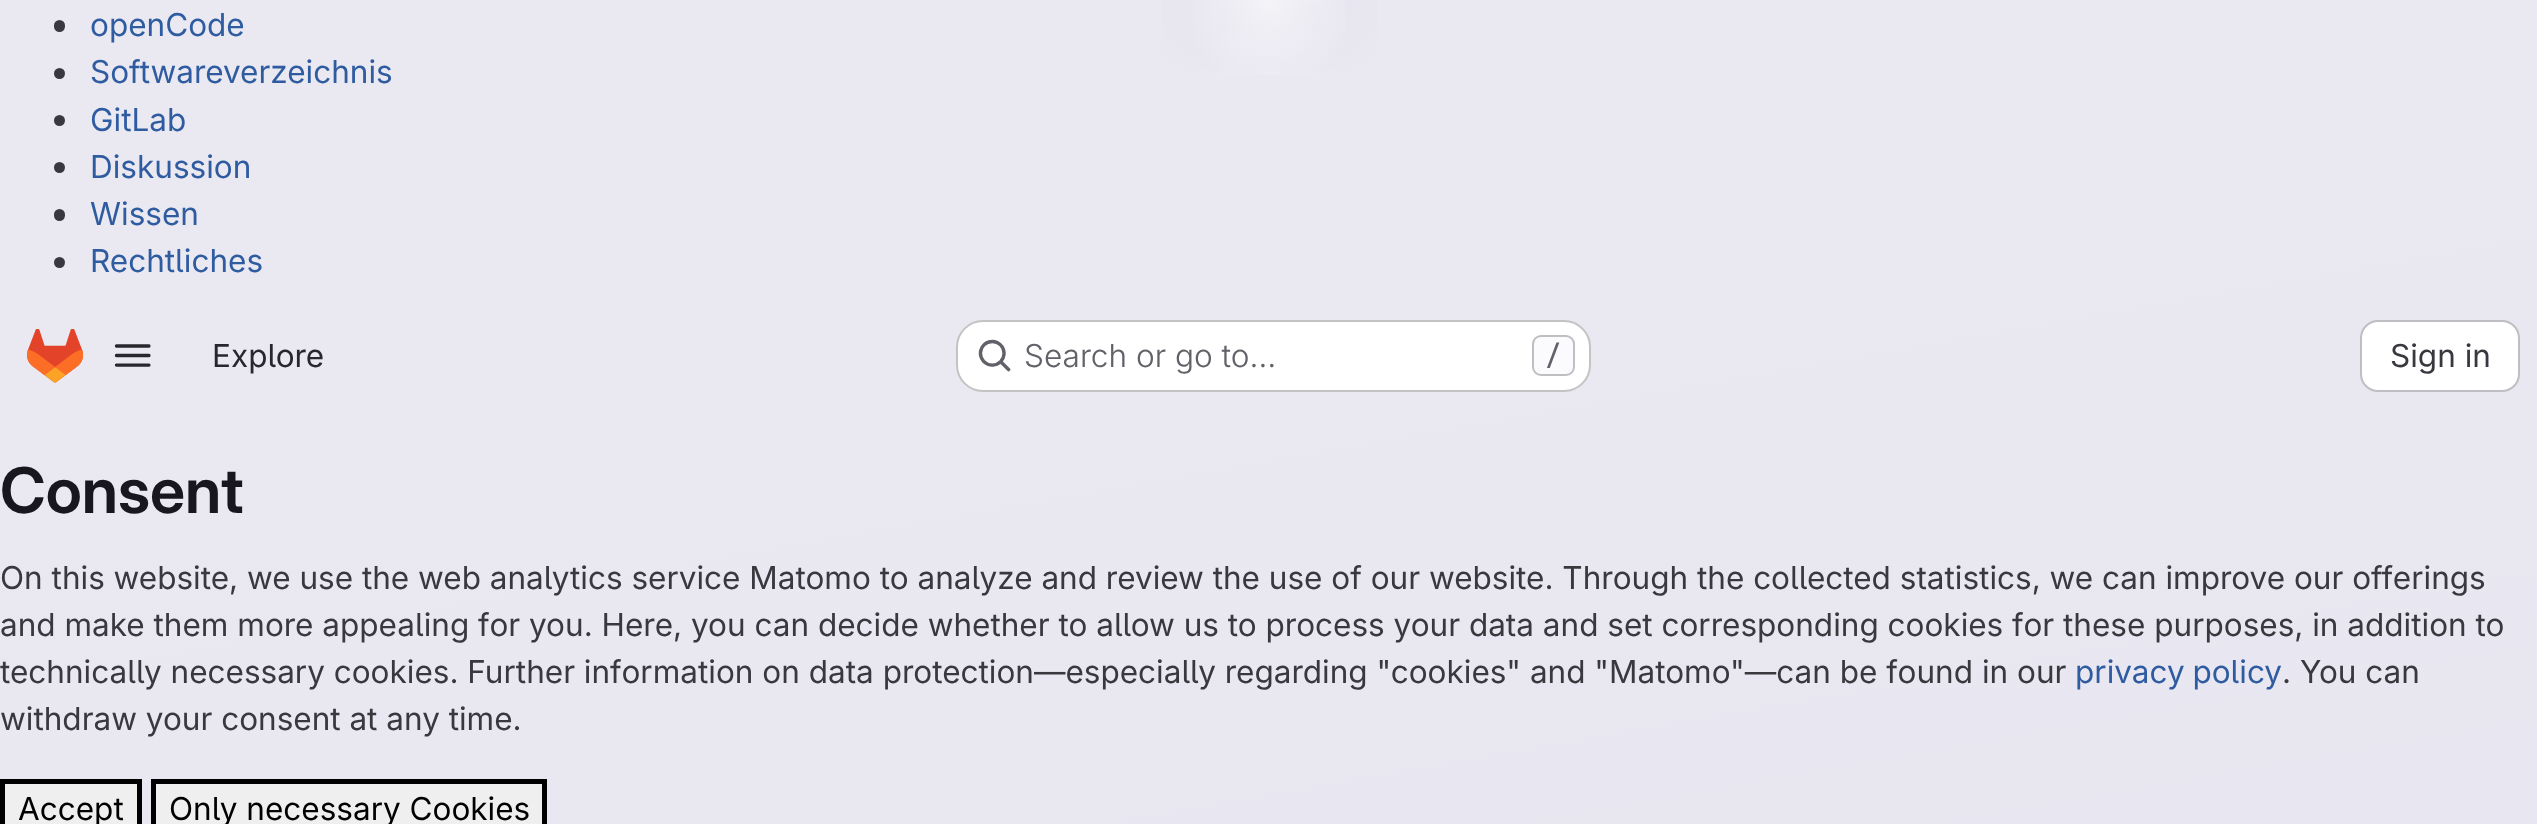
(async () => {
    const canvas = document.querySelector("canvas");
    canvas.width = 2537;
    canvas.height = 824;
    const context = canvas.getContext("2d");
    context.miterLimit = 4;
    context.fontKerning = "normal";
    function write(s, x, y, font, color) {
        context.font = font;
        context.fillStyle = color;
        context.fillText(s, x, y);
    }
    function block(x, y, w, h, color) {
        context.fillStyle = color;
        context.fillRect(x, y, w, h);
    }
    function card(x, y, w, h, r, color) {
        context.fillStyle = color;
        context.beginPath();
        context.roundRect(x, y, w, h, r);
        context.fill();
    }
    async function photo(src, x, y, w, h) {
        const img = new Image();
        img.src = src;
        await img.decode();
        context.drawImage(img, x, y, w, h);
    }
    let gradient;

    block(0, 0, 2537, 824, "rgb(255, 255, 255)");
    gradient = context.createLinearGradient(1378, 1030, 1160, -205);
    gradient.addColorStop(0, "rgb(232, 230, 240)");
    gradient.addColorStop(0.7, "rgb(234, 233, 242)");
    context.fillStyle = gradient;
    context.fillRect(0, 0, 2537, 824);
    gradient = context.createRadialGradient(1269, 0, 0, 1269, 0, 1269);
    gradient.addColorStop(0, "rgb(228, 226, 237)");
    gradient.addColorStop(0.12, "rgba(228, 226, 237, 0)");
    context.fillStyle = gradient;
    context.beginPath();
    context.rect(1161, 0, 216, 71);
    context.save();
    context.clip();
    context.scale(1, 826 / 1269);
    context.fillRect(0, 0, 2537, 1266);
    context.restore();
    gradient = context.createRadialGradient(1269, 0, 0, 1269, 0, 1269);
    gradient.addColorStop(0, "rgb(228, 226, 236)");
    gradient.addColorStop(0.09, "rgba(228, 226, 236, 0)");
    context.fillStyle = gradient;
    context.beginPath();
    context.rect(1217, 6, 104, 28);
    context.save();
    context.clip();
    context.scale(1, 826 / 1269);
    context.fillRect(0, 0, 2537, 1266);
    context.restore();
    gradient = context.createRadialGradient(1269, 0, 0, 1269, 0, 1514);
    gradient.addColorStop(0, "rgba(255, 255, 255, 0.6)");
    gradient.addColorStop(0.06, "rgba(255, 255, 255, 0)");
    context.fillStyle = gradient;
    context.fillRect(1192, 0, 154, 75);
    card(54, 20, 11, 12, 5.5, "rgb(58, 56, 63)");
    write("openCode", 90, 36, "31.5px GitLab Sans", "rgb(47, 92, 160)");
    context.fillStyle = "rgb(58, 56, 63)";
    context.beginPath();
    context.arc(59.5, 73.5, 5.5, 0, Math.PI * 2);
    context.fill();
    write("Softwareverzeichnis", 90, 83, "31.5px GitLab Sans", "rgb(47, 92, 160)");
    context.fillStyle = "rgb(58, 56, 63)";
    context.beginPath();
    context.arc(59.5, 120.5, 5.5, 0, Math.PI * 2);
    context.fill();
    write("GitLab", 90, 131, "31.5px GitLab Sans", "rgb(47, 92, 160)");
    context.fillStyle = "rgb(58, 56, 63)";
    context.beginPath();
    context.arc(59.5, 167.5, 5.5, 0, Math.PI * 2);
    context.fill();
    write("Diskussion", 90, 178, "31.5px GitLab Sans", "rgb(47, 92, 160)");
    card(54, 209, 11, 12, 5.5, "rgb(58, 56, 63)");
    write("Wissen", 90, 225, "31.5px GitLab Sans", "rgb(47, 92, 160)");
    context.fillStyle = "rgb(58, 56, 63)";
    context.beginPath();
    context.arc(59.5, 262.5, 5.5, 0, Math.PI * 2);
    context.fill();
    write("Rechtliches", 90, 272, "31.5px GitLab Sans", "rgb(47, 92, 160)");
    await photo("media/1.png", 27, 329, 56, 54);
    await photo("media/2.png", 114, 344, 37, 23);
    write("Explore", 212, 367, "31.5px GitLab Sans", "rgb(40, 39, 45)");
    card(956, 320, 635, 72, 27, "rgb(255, 255, 255)");
    context.beginPath();
    context.roundRect(957, 321, 633, 70, 26);
    context.strokeStyle = "rgba(5, 5, 6, 0.24)";
    context.lineWidth = 2;
    context.stroke();
    await photo("media/3.png", 978, 339, 33, 33);
    write("Search or go to…", 1024, 367, "300 31.5px GitLab Sans", "rgb(98, 97, 104)");
    context.fillStyle = "rgb(251, 250, 253)";
    context.beginPath();
    context.roundRect(1533, 336, 41, 39, 8);
    context.fill();
    context.strokeStyle = "rgb(191, 191, 195)";
    context.stroke();
    write("/", 1545, 365, "500 27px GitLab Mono", "rgb(98, 97, 104)");
    context.fillStyle = "rgb(255, 255, 255)";
    context.beginPath();
    context.roundRect(2361, 321, 158, 70, 17);
    context.fill();
    context.stroke();
    write("Sign in", 2390, 367, "31.5px GitLab Sans", "rgb(58, 56, 63)");
    write("Consent", 0, 513, "600 63px GitLab Sans", "rgb(24, 23, 29)");
    write("On this website, we use the web analytics service Matomo to analyze and review the use of our website. Through the collected statistics, we can improve our offerings", 0, 589, "31.5px GitLab Sans", "rgb(58, 56, 63)");
    write("and make them more appealing for you. Here, you can decide whether to allow us to process your data and set corresponding cookies for these purposes, in addition to", 0, 636, "31.5px GitLab Sans", "rgb(58, 56, 63)");
    write("technically necessary cookies. Further information on data protection—especially regarding \"cookies\" and \"Matomo\"—can be found in our", 0, 683, "31.5px GitLab Sans", "rgb(58, 56, 63)");
    context.wordSpacing = "-1px";
    write("privacy policy", 2075, 683, "31.5px GitLab Sans", "rgb(47, 92, 160)");
    context.wordSpacing = "0px";
    write(". You can", 2282, 683, "31.5px GitLab Sans", "rgb(58, 56, 63)");
    write("withdraw your consent at any time.", 0, 730, "31.5px GitLab Sans", "rgb(58, 56, 63)");
    context.fillStyle = "rgb(239, 239, 239)";
    context.beginPath();
    context.rect(2.5, 781.5, 137, 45);
    context.fill();
    context.strokeStyle = "rgb(0, 0, 0)";
    context.lineWidth = 5;
    context.stroke();
    write("Accept", 18, 820, "31.5px GitLab Sans", "rgb(0, 0, 0)");
    context.fillStyle = "rgb(239, 239, 239)";
    context.beginPath();
    context.rect(153.5, 781.5, 391, 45);
    context.fill();
    context.stroke();
    write("Only necessary Cookies", 169, 820, "31.5px GitLab Sans", "rgb(0, 0, 0)");
})();
